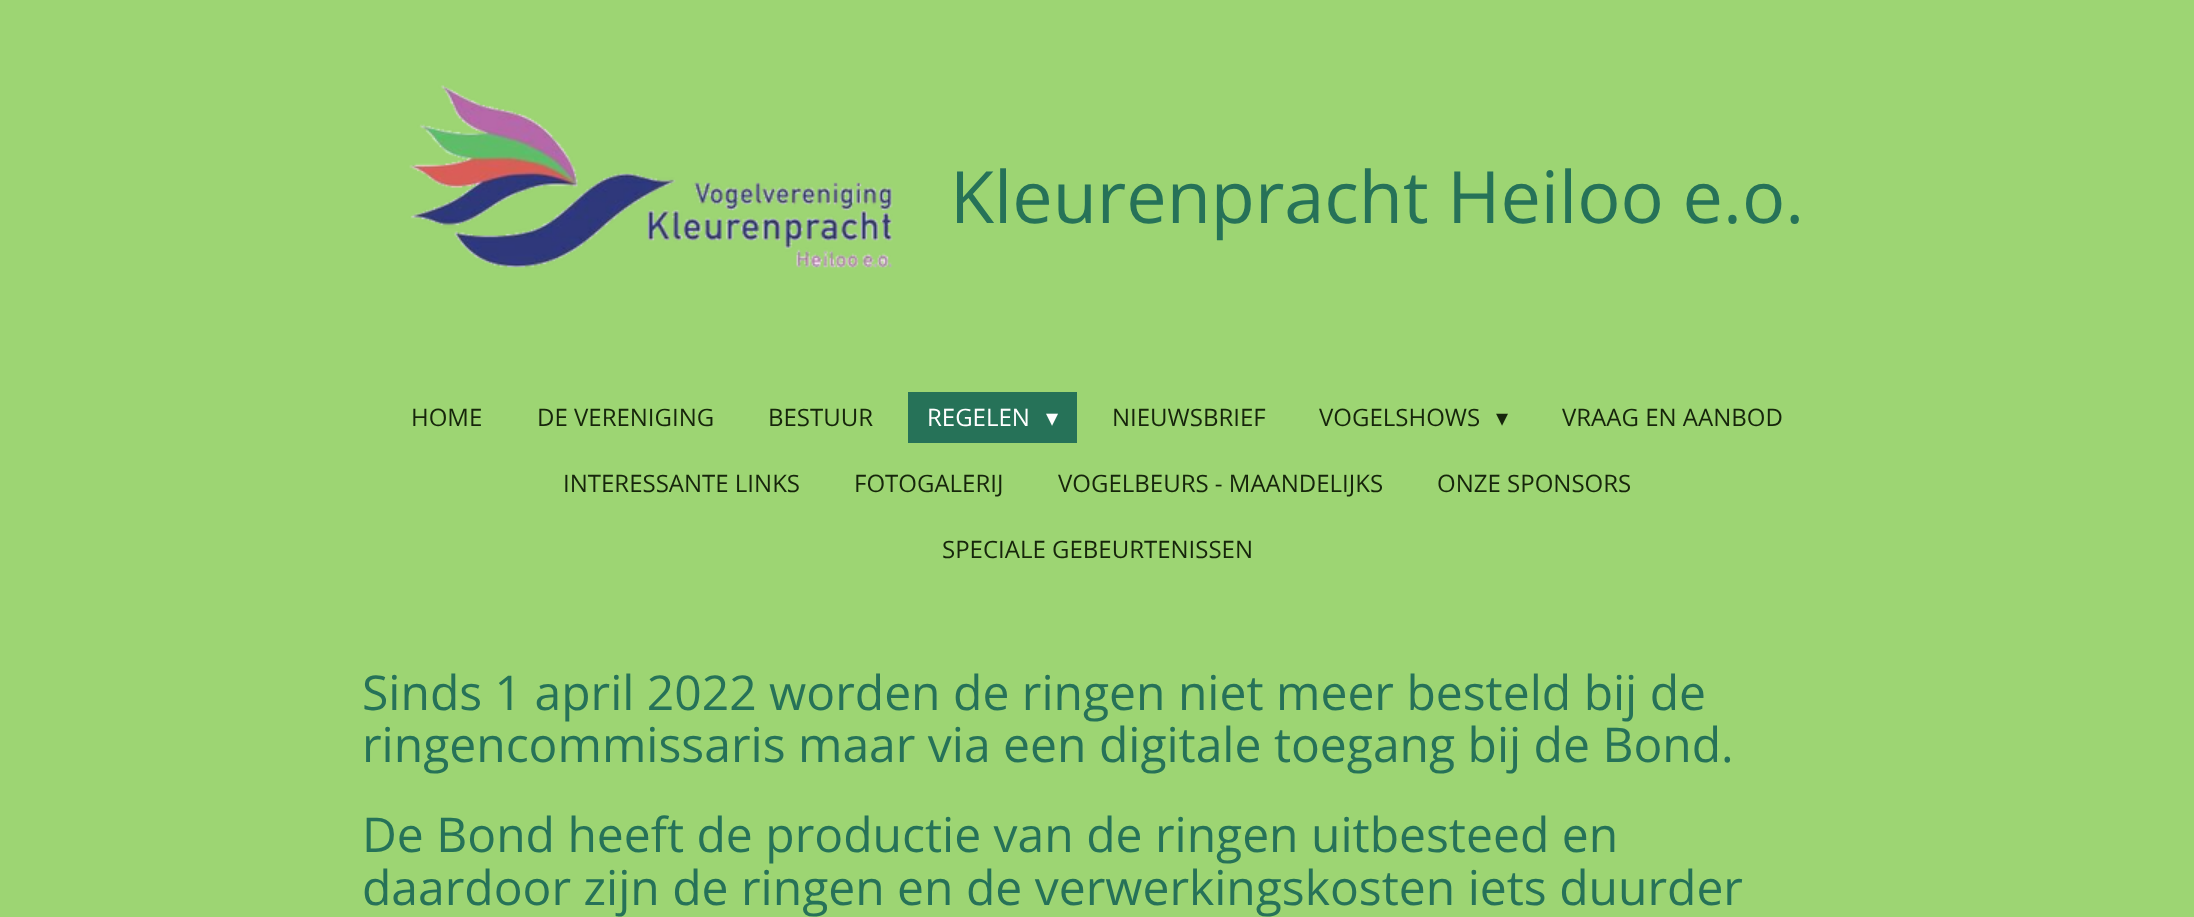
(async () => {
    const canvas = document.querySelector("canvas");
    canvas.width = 2194;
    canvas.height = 917;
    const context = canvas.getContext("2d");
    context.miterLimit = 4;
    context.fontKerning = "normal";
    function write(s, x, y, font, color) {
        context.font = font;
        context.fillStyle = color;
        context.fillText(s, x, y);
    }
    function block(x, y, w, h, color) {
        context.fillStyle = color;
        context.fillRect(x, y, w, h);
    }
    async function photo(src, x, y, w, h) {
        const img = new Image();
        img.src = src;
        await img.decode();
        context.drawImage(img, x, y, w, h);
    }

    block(0, 0, 2194, 917, "rgb(157, 213, 115)");
    await photo("media/1.png", 409, 85, 484, 184);
    write("Kleurenpracht Heiloo e.o.", 950, 223, "72px Open Sans", "rgb(38, 114, 88)");
    write("HOME", 411, 426, "24px Open Sans", "rgb(22, 37, 11)");
    write("DE VERENIGING", 537, 426, "24px Open Sans", "rgb(22, 37, 11)");
    write("BESTUUR", 768, 426, "24px Open Sans", "rgb(22, 37, 11)");
    block(908, 392, 169, 51, "rgb(38, 114, 88)");
    write("REGELEN", 927, 426, "24px Open Sans", "rgb(255, 255, 255)");
    write("▾", 1046, 426, "24px DejaVu Sans", "rgb(255, 255, 255)");
    write("NIEUWSBRIEF", 1112, 426, "24px Open Sans", "rgb(22, 37, 11)");
    write("VOGELSHOWS", 1319, 426, "24px Open Sans", "rgb(22, 37, 11)");
    write("▾", 1496, 426, "24px DejaVu Sans", "rgb(22, 37, 11)");
    write("VRAAG EN AANBOD", 1562, 426, "24px Open Sans", "rgb(22, 37, 11)");
    write("INTERESSANTE LINKS", 563, 492, "24px Open Sans", "rgb(22, 37, 11)");
    write("FOTOGALERIJ", 854, 492, "24px Open Sans", "rgb(22, 37, 11)");
    write("VOGELBEURS - MAANDELIJKS", 1058, 492, "24px Open Sans", "rgb(22, 37, 11)");
    write("ONZE SPONSORS", 1437, 492, "24px Open Sans", "rgb(22, 37, 11)");
    write("SPECIALE GEBEURTENISSEN", 942, 558, "24px Open Sans", "rgb(22, 37, 11)");
    write("Sinds 1 april 2022 worden de ringen niet meer besteld bij de", 362, 710, "48px Open Sans", "rgb(38, 114, 88)");
    write("ringencommissaris maar via een digitale toegang bij de Bond.", 362, 762, "48px Open Sans", "rgb(38, 114, 88)");
    write("De Bond heeft de productie van de ringen uitbesteed en", 362, 852, "48px Open Sans", "rgb(38, 114, 88)");
    write("daardoor zijn de ringen en de verwerkingskosten iets duurder", 362, 905, "48px Open Sans", "rgb(38, 114, 88)");
})();
